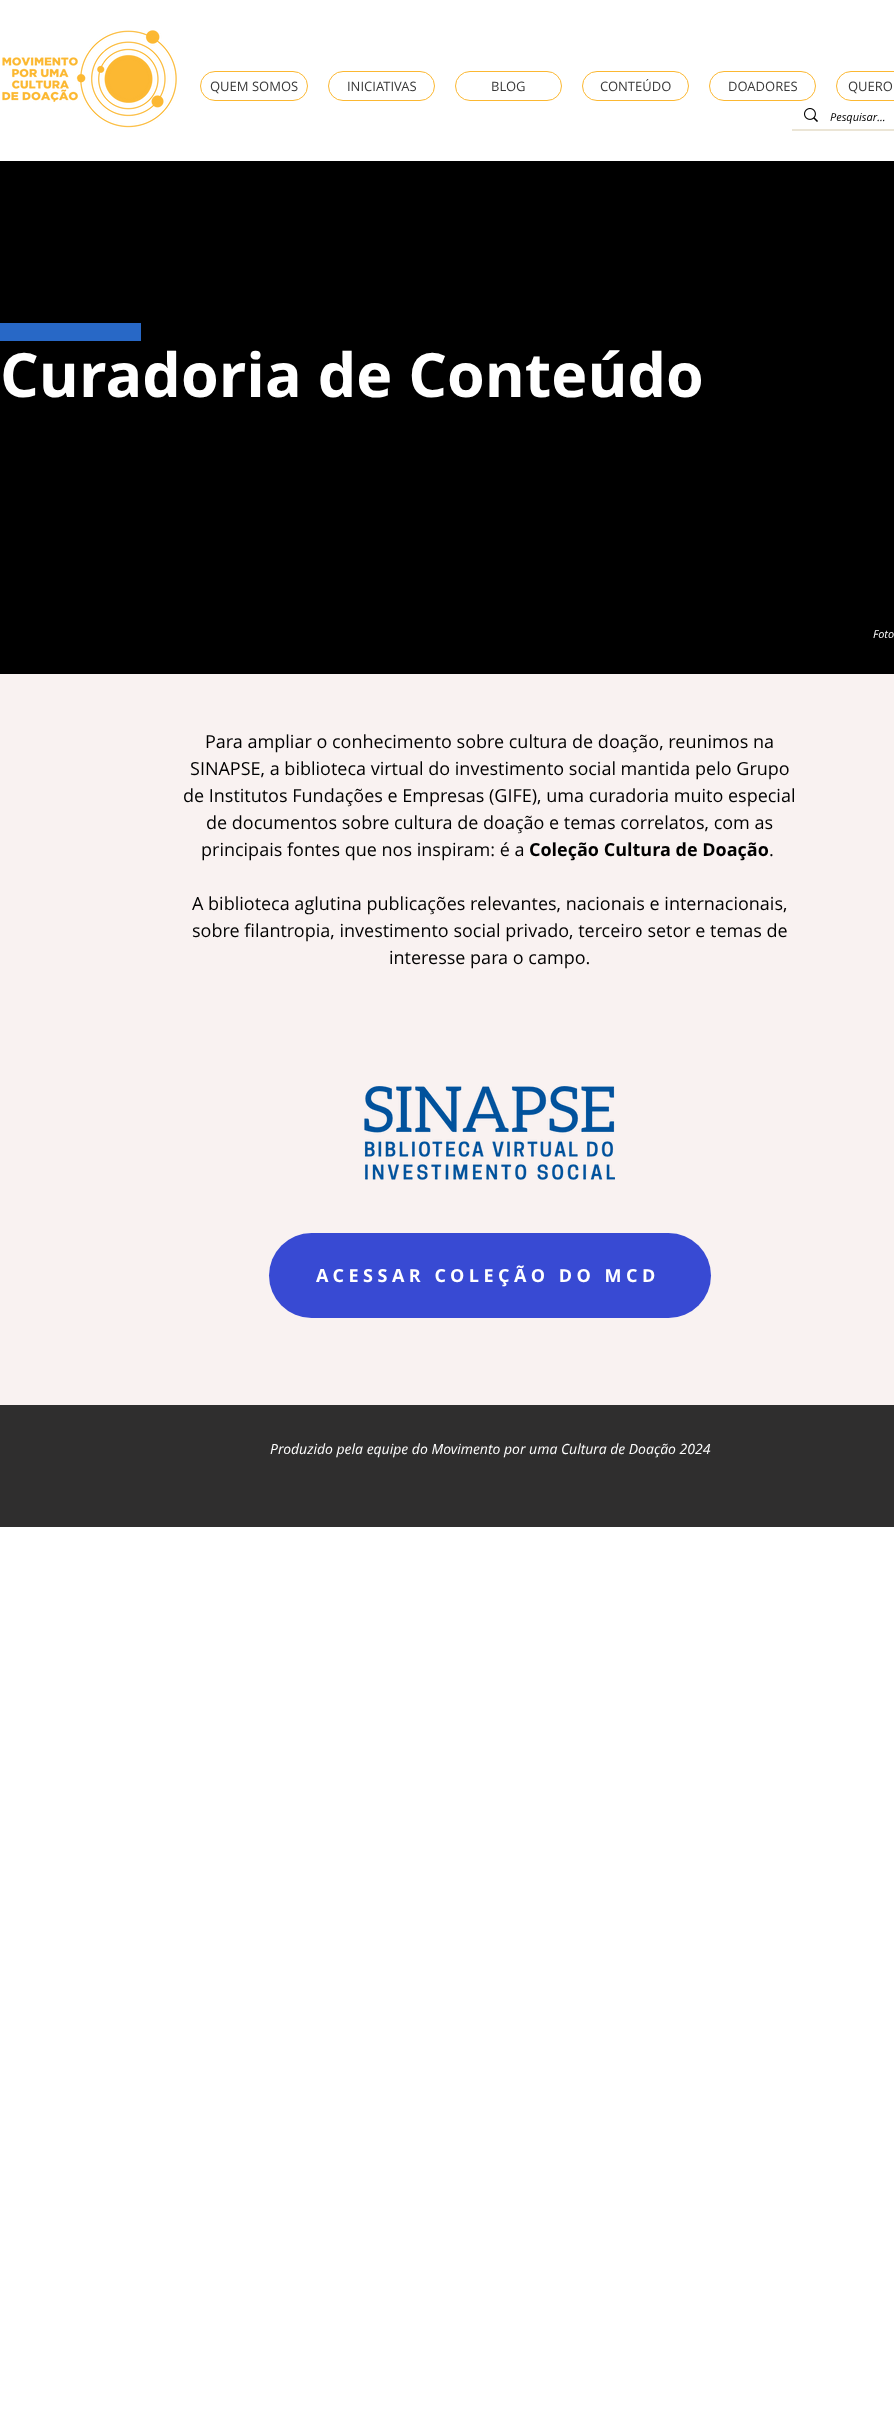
(async () => {
    const canvas = document.querySelector("canvas");
    canvas.width = 894;
    canvas.height = 2431;
    const context = canvas.getContext("2d");
    context.miterLimit = 4;
    context.fontKerning = "normal";
    function write(s, x, y, font, color) {
        context.font = font;
        context.fillStyle = color;
        context.fillText(s, x, y);
    }
    function block(x, y, w, h, color) {
        context.fillStyle = color;
        context.fillRect(x, y, w, h);
    }
    function card(x, y, w, h, r, color) {
        context.fillStyle = color;
        context.beginPath();
        context.roundRect(x, y, w, h, r);
        context.fill();
    }
    async function photo(src, x, y, w, h) {
        const img = new Image();
        img.src = src;
        await img.decode();
        context.drawImage(img, x, y, w, h);
    }

    block(0, 0, 894, 2431, "rgb(255, 255, 255)");
    await photo("media/1.png", 2, 30, 175, 98);
    context.beginPath();
    context.roundRect(200.5, 71.5, 107, 29, 14.5);
    context.strokeStyle = "rgb(252, 184, 50)";
    context.stroke();
    write("QUEM SOMOS", 210, 91, "13px Open Sans", "rgb(56, 56, 56)");
    context.beginPath();
    context.roundRect(328.5, 71.5, 106, 29, 14.5);
    context.stroke();
    write("INICIATIVAS", 347, 91, "13px Open Sans", "rgb(56, 56, 56)");
    context.beginPath();
    context.roundRect(455.5, 71.5, 106, 29, 14.5);
    context.stroke();
    write("BLOG", 491, 91, "13px Open Sans", "rgb(56, 56, 56)");
    context.beginPath();
    context.roundRect(582.5, 71.5, 106, 29, 14.5);
    context.stroke();
    write("CONTEÚDO", 600, 91, "13px Open Sans", "rgb(56, 56, 56)");
    context.beginPath();
    context.roundRect(709.5, 71.5, 106, 29, 14.5);
    context.stroke();
    write("DOADORES", 728, 91, "13px Open Sans", "rgb(56, 56, 56)");
    context.beginPath();
    context.roundRect(836.5, 71.5, 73, 29, 14.5);
    context.stroke();
    write("QUERO", 848, 91, "13px Open Sans", "rgb(56, 56, 56)");
    block(792, 129, 102, 2, "rgb(235, 229, 214)");
    await photo("media/2.png", 804, 108, 14, 14);
    write("Pesquisar...", 830, 121, "italic 11px Open Sans", "rgb(0, 0, 0)");
    block(0, 161, 894, 513, "rgb(0, 0, 0)");
    block(0, 323, 141, 18, "rgb(40, 104, 198)");
    write("Curadoria de Conteúdo", 0, 397, "bold 61px Open Sans", "rgb(255, 255, 255)");
    write("Foto", 873, 638, "italic 11px Open Sans", "rgb(255, 255, 255)");
    block(0, 674, 894, 731, "rgb(249, 242, 241)");
    write("Para ampliar o conhecimento sobre cultura de doação, reunimos na", 205, 748, "18px Open Sans", "rgb(0, 0, 0)");
    write("SINAPSE, a biblioteca virtual do investimento social mantida pelo Grupo", 190, 775, "18px Open Sans", "rgb(0, 0, 0)");
    write("de Institutos Fundações e Empresas (GIFE), uma curadoria muito especial", 183, 802, "18px Open Sans", "rgb(0, 0, 0)");
    write("de documentos sobre cultura de doação e temas correlatos, com as", 206, 829, "18px Open Sans", "rgb(0, 0, 0)");
    write("principais fontes que nos inspiram: é a", 201, 856, "18px Open Sans", "rgb(0, 0, 0)");
    write("Coleção Cultura de Doação", 529, 856, "bold 18px Open Sans", "rgb(0, 0, 0)");
    write(".", 769, 856, "18px Open Sans", "rgb(0, 0, 0)");
    write("A biblioteca aglutina publicações relevantes, nacionais e internacionais,", 192, 910, "18px Open Sans", "rgb(0, 0, 0)");
    write("sobre filantropia, investimento social privado, terceiro setor e temas de", 192, 937, "18px Open Sans", "rgb(0, 0, 0)");
    write("interesse para o campo.", 389, 964, "18px Open Sans", "rgb(0, 0, 0)");
    await photo("media/3.png", 364, 1086, 251, 94);
    card(269, 1233, 442, 85, 42.5, "rgb(56, 74, 211)");
    context.letterSpacing = "4.5px";
    write("ACESSAR COLEÇÃO DO MCD", 316, 1282, "bold 18px Open Sans", "rgb(255, 255, 255)");
    block(0, 1405, 894, 122, "rgb(47, 46, 46)");
    context.letterSpacing = "0px";
    write("Produzido pela equipe do Movimento por uma Cultura de Doação 2024", 270, 1454, "italic 14px Open Sans", "rgb(255, 255, 255)");
})();
